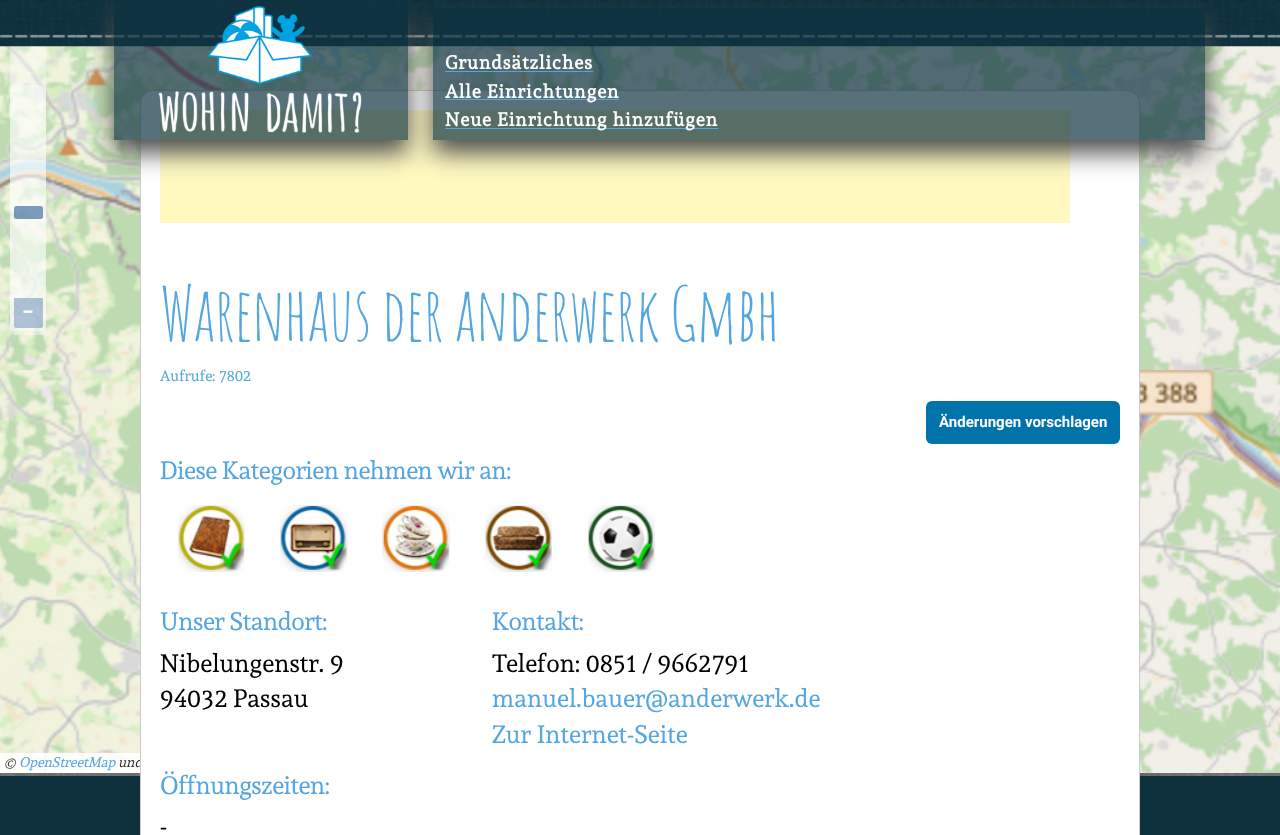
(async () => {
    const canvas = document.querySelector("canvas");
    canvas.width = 1280;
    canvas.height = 835;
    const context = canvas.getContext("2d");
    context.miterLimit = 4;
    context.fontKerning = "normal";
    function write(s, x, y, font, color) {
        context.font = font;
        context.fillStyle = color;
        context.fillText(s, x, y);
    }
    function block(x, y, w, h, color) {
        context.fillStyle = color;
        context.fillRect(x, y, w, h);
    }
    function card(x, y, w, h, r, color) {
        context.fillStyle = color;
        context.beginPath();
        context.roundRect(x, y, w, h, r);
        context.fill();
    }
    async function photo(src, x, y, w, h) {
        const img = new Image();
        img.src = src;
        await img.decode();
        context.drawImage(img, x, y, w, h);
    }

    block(0, 0, 1280, 835, "rgb(255, 255, 255)");
    await photo("media/1.png", 0, 773, 1280, 3);
    await photo("media/4.png", 0, 46, 1280, 727);
    card(10, 10, 36, 321, 5, "rgba(255, 255, 255, 0.4)");
    await photo("media/2.png", 0, 0, 1280, 47);
    block(0, 753, 140, 20, "rgba(255, 255, 255, 0.88)");
    write("und", 118, 767, "italic 13.75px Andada", "rgb(51, 51, 51)");
    block(0, 776, 1280, 59, "rgb(15, 48, 61)");
    context.fillStyle = "rgb(255, 255, 255)";
    context.beginPath();
    context.roundRect(140.5, 90.5, 999, 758, 12.5);
    context.fill();
    context.strokeStyle = "rgb(204, 204, 204)";
    context.stroke();
    block(160, 110, 910, 113, "rgb(255, 249, 192)");
    context.save();
    context.beginPath();
    context.moveTo(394, 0);
    context.lineTo(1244, 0);
    context.lineTo(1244, 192);
    context.lineTo(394, 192);
    context.closePath();
    context.moveTo(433, 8);
    context.lineTo(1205, 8);
    context.lineTo(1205, 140);
    context.lineTo(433, 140);
    context.closePath();
    context.clip("evenodd");
    context.fillStyle = "rgb(77, 77, 77)";
    context.filter = "blur(12.5px)";
    context.beginPath();
    context.rect(433, 20, 772, 133);
    context.fill();
    context.filter = "none";
    context.restore();
    block(433, 8, 772, 132, "rgba(16, 51, 65, 0.7)");
    context.save();
    context.beginPath();
    context.moveTo(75, 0);
    context.lineTo(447, 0);
    context.lineTo(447, 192);
    context.lineTo(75, 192);
    context.closePath();
    context.moveTo(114, 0);
    context.lineTo(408, 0);
    context.lineTo(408, 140);
    context.lineTo(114, 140);
    context.closePath();
    context.clip("evenodd");
    context.fillStyle = "rgb(77, 77, 77)";
    context.filter = "blur(12.5px)";
    context.beginPath();
    context.rect(114, 13, 294, 140);
    context.fill();
    context.filter = "none";
    context.restore();
    block(114, 0, 294, 140, "rgba(16, 51, 65, 0.7)");
    await photo("media/3.png", 158, 6, 204, 127);
    context.letterSpacing = "0.95px";
    write("Grundsätzliches", 445, 69, "bold 18.75px Andada", "rgb(255, 255, 255)");
    block(445, 71, 148, 1, "rgb(83, 166, 224)");
    block(445, 99, 174, 1, "rgb(83, 166, 224)");
    write("Alle Einrichtungen", 445, 98, "bold 18.75px Andada", "rgb(255, 255, 255)");
    block(445, 128, 273, 1, "rgb(83, 166, 224)");
    write("Neue Einrichtung hinzufügen", 445, 126, "bold 18.75px Andada", "rgb(255, 255, 255)");
    context.fillStyle = "rgba(0, 60, 136, 0.5)";
    context.beginPath();
    context.roundRect(14, 298, 29, 30, [0, 0, 2.5, 2.5]);
    context.fill();
    context.letterSpacing = "0px";
    write("−", 22, 319, "bold 21px Roboto", "rgb(255, 255, 255)");
    card(10, 85, 36, 250, 5, "rgba(255, 255, 255, 0.4)");
    card(14, 206, 29, 13, 2.5, "rgba(0, 60, 136, 0.5)");
    write("©", 4, 767, "italic 13.75px Andada", "rgb(51, 51, 51)");
    write("OpenStreetMap", 19, 767, "italic 13.75px Andada", "rgb(83, 166, 224)");
    context.letterSpacing = "-1.5px";
    write("Warenhaus der anderwerk Gmbh", 160, 341, "73.75px Amatic SC", "rgb(83, 166, 224)");
    context.letterSpacing = "0px";
    write("Aufrufe: 7802", 160, 381, "15px Andada", "rgb(83, 166, 224)");
    card(926, 401, 194, 43, 6, "rgb(0, 115, 170)");
    write("Änderungen vorschlagen", 939, 427, "bold 15px Roboto", "rgb(255, 255, 255)");
    context.letterSpacing = "-0.5px";
    write("Diese Kategorien nehmen wir an:", 160, 479, "25px Andada", "rgb(83, 166, 224)");
    await photo("media/5.png", 178, 505, 67, 67);
    await photo("media/6.png", 219, 542, 26, 30);
    await photo("media/7.png", 280, 505, 68, 67);
    await photo("media/8.png", 321, 542, 27, 30);
    await photo("media/9.png", 382, 505, 68, 67);
    await photo("media/10.png", 424, 542, 26, 30);
    await photo("media/11.png", 485, 505, 67, 67);
    await photo("media/12.png", 526, 542, 26, 30);
    await photo("media/13.png", 588, 505, 67, 67);
    await photo("media/14.png", 629, 542, 26, 30);
    write("Unser Standort:", 160, 630, "25px Andada", "rgb(83, 166, 224)");
    context.letterSpacing = "0px";
    write("Nibelungenstr. 9", 160, 672, "25px Andada", "rgb(0, 0, 0)");
    write("94032 Passau", 160, 707, "25px Andada", "rgb(0, 0, 0)");
    context.letterSpacing = "-0.5px";
    write("Kontakt:", 492, 630, "25px Andada", "rgb(83, 166, 224)");
    context.letterSpacing = "0px";
    write("Telefon: 0851 / 9662791", 492, 672, "25px Andada", "rgb(0, 0, 0)");
    write("manuel.bauer@anderwerk.de", 492, 707, "25px Andada", "rgb(83, 166, 224)");
    write("Zur Internet-Seite", 492, 743, "25px Andada", "rgb(83, 166, 224)");
    context.letterSpacing = "-0.5px";
    write("Öffnungszeiten:", 160, 794, "25px Andada", "rgb(83, 166, 224)");
    context.letterSpacing = "0px";
    write("-", 160, 835, "25px Andada", "rgb(0, 0, 0)");
})();
